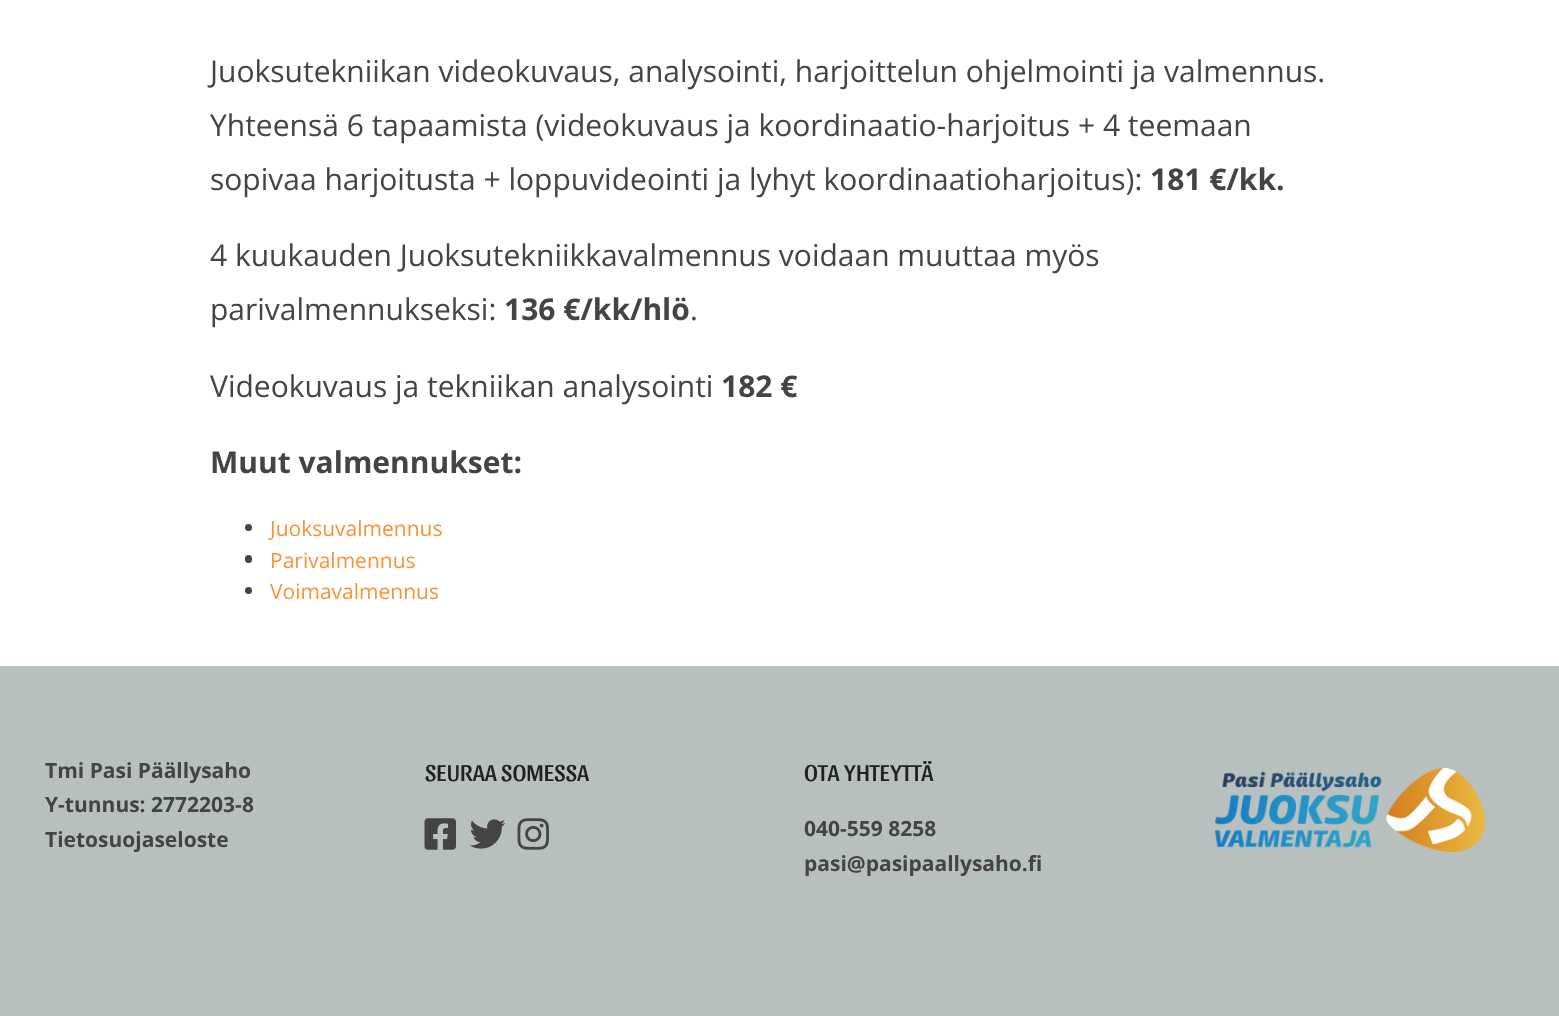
(async () => {
    const canvas = document.querySelector("canvas");
    canvas.width = 1559;
    canvas.height = 1016;
    const context = canvas.getContext("2d");
    context.miterLimit = 4;
    context.fontKerning = "normal";
    function write(s, x, y, font, color) {
        context.font = font;
        context.fillStyle = color;
        context.fillText(s, x, y);
    }
    function block(x, y, w, h, color) {
        context.fillStyle = color;
        context.fillRect(x, y, w, h);
    }
    function card(x, y, w, h, r, color) {
        context.fillStyle = color;
        context.beginPath();
        context.roundRect(x, y, w, h, r);
        context.fill();
    }
    async function photo(src, x, y, w, h) {
        const img = new Image();
        img.src = src;
        await img.decode();
        context.drawImage(img, x, y, w, h);
    }

    block(0, 0, 1559, 1016, "rgb(255, 255, 255)");
    write("Juoksutekniikan videokuvaus, analysointi, harjoittelun ohjelmointi ja valmennus.", 210, 82, "30px Open Sans", "rgb(68, 68, 68)");
    write("Yhteensä 6 tapaamista (videokuvaus ja koordinaatio-harjoitus + 4 teemaan", 210, 136, "30px Open Sans", "rgb(68, 68, 68)");
    write("sopivaa harjoitusta + loppuvideointi ja lyhyt koordinaatioharjoitus):", 210, 190, "30px Open Sans", "rgb(68, 68, 68)");
    write("181 €/kk.", 1150, 190, "bold 30px Open Sans", "rgb(68, 68, 68)");
    write("4 kuukauden Juoksutekniikkavalmennus voidaan muuttaa myös", 210, 266, "30px Open Sans", "rgb(68, 68, 68)");
    write("parivalmennukseksi:", 210, 320, "30px Open Sans", "rgb(68, 68, 68)");
    write("136 €/kk/hlö", 504, 320, "bold 30px Open Sans", "rgb(68, 68, 68)");
    write(".", 690, 320, "30px Open Sans", "rgb(68, 68, 68)");
    write("Videokuvaus ja tekniikan analysointi", 210, 397, "30px Open Sans", "rgb(68, 68, 68)");
    write("182 €", 721, 397, "bold 30px Open Sans", "rgb(68, 68, 68)");
    write("Muut valmennukset:", 210, 473, "bold 30px Open Sans", "rgb(68, 68, 68)");
    context.beginPath();
    context.arc(248.5, 527.5, 3.5, 0, Math.PI * 2);
    context.fill();
    write("Juoksuvalmennus", 270, 536, "21px Open Sans", "rgb(248, 146, 57)");
    card(245, 555, 7, 8, 3.5, "rgb(68, 68, 68)");
    write("Parivalmennus", 270, 568, "21px Open Sans", "rgb(248, 146, 57)");
    context.fillStyle = "rgb(68, 68, 68)";
    context.beginPath();
    context.arc(248.5, 590.5, 3.5, 0, Math.PI * 2);
    context.fill();
    write("Voimavalmennus", 270, 599, "21px Open Sans", "rgb(248, 146, 57)");
    block(0, 666, 1559, 350, "rgb(184, 192, 191)");
    write("Tmi Pasi Päällysaho", 45, 778, "bold 21px Open Sans", "rgb(68, 68, 68)");
    write("Y-tunnus: 2772203-8", 45, 812, "bold 21px Open Sans", "rgb(68, 68, 68)");
    write("Tietosuojaseloste", 45, 847, "bold 21px Open Sans", "rgb(68, 68, 68)");
    write("SEURAA SOMESSA", 425, 781, "24px Sansita", "rgb(33, 33, 33)");
    await photo("media/1.png", 424, 818, 32, 32);
    await photo("media/2.png", 469, 819, 37, 30);
    await photo("media/3.png", 517, 818, 32, 32);
    write("OTA YHTEYTTÄ", 804, 781, "24px Sansita", "rgb(33, 33, 33)");
    write("040-559 8258", 804, 836, "bold 21px Open Sans", "rgb(68, 68, 68)");
    write("pasi@pasipaallysaho.fi", 804, 871, "bold 21px Open Sans", "rgb(68, 68, 68)");
    await photo("media/4.png", 1215, 768, 270, 84);
})();
